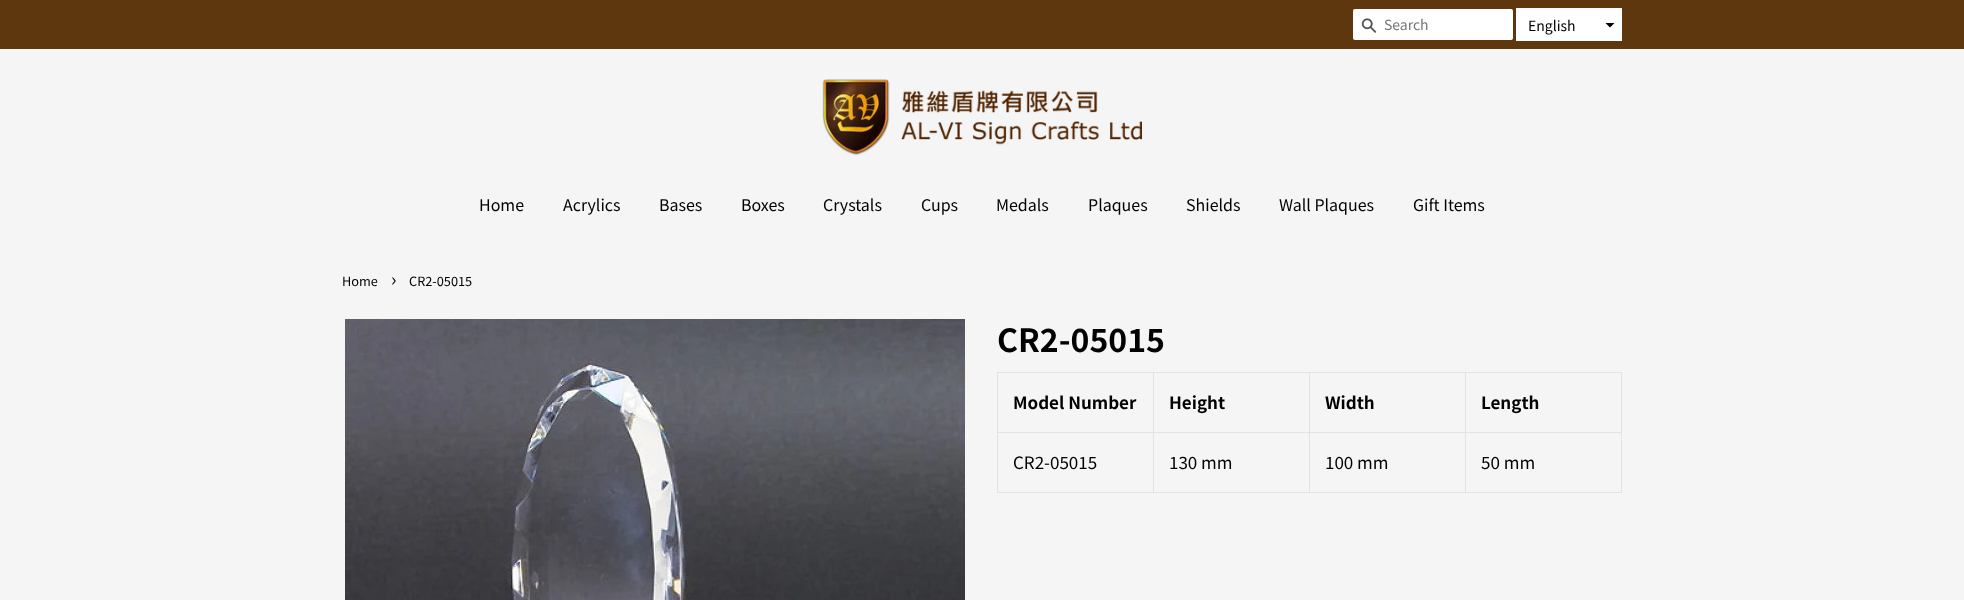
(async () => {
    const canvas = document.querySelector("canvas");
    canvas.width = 1964;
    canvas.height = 600;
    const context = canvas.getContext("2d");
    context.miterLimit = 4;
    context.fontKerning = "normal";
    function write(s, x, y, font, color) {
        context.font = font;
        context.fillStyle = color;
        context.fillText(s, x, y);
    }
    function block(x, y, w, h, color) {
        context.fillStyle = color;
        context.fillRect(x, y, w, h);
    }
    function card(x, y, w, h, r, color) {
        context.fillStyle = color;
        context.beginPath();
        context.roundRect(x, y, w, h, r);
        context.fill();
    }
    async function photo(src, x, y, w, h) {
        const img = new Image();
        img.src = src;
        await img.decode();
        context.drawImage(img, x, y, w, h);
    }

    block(0, 0, 1964, 600, "rgb(245, 245, 245)");
    block(0, 0, 1964, 49, "rgb(95, 55, 15)");
    card(1353, 9, 160, 31, 2, "rgb(255, 255, 255)");
    await photo("media/1.png", 1361, 18, 16, 15);
    write("Search", 1384, 30, "14px Noto Sans HK", "rgb(117, 117, 117)");
    block(1516, 8, 106, 33, "rgb(255, 255, 255)");
    write("English", 1528, 31, "14px Noto Sans HK", "rgb(0, 0, 0)");
    context.save();
    context.beginPath();
    context.rect(1605, 23, 10, 5);
    context.clip();
    context.beginPath();
    context.moveTo(1615, 22.5);
    context.lineTo(1610, 27.5);
    context.lineTo(1605, 22.5);
    context.closePath();
    context.fill("evenodd");
    context.restore();
    await photo("media/2.png", 822, 79, 320, 76);
    write("Home", 479, 211, "16px Noto Sans HK", "rgb(0, 0, 0)");
    write("Acrylics", 563, 211, "16px Noto Sans HK", "rgb(0, 0, 0)");
    write("Bases", 659, 211, "16px Noto Sans HK", "rgb(0, 0, 0)");
    write("Boxes", 741, 211, "16px Noto Sans HK", "rgb(0, 0, 0)");
    write("Crystals", 823, 211, "16px Noto Sans HK", "rgb(0, 0, 0)");
    write("Cups", 921, 211, "16px Noto Sans HK", "rgb(0, 0, 0)");
    write("Medals", 996, 211, "16px Noto Sans HK", "rgb(0, 0, 0)");
    write("Plaques", 1088, 211, "16px Noto Sans HK", "rgb(0, 0, 0)");
    write("Shields", 1186, 211, "16px Noto Sans HK", "rgb(0, 0, 0)");
    write("Wall Plaques", 1279, 211, "16px Noto Sans HK", "rgb(0, 0, 0)");
    write("Gift Items", 1413, 211, "16px Noto Sans HK", "rgb(0, 0, 0)");
    write("Home", 342, 286, "12.75px Noto Sans HK", "rgb(0, 0, 0)");
    write("›", 391, 286, "18px Noto Sans HK", "rgb(0, 0, 0)");
    write("CR2-05015", 409, 286, "12.75px Noto Sans HK", "rgb(0, 0, 0)");
    await photo("media/3.png", 345, 319, 620, 281);
    write("CR2-05015", 997, 352, "bold 32px Noto Sans HK", "rgb(0, 0, 0)");
    block(1465, 372, 157, 1, "rgb(227, 227, 227)");
    block(1465, 432, 157, 1, "rgb(227, 227, 227)");
    block(1621, 432, 1, 61, "rgb(227, 227, 227)");
    block(1465, 492, 157, 1, "rgb(227, 227, 227)");
    block(1465, 432, 1, 61, "rgb(227, 227, 227)");
    block(1309, 432, 157, 1, "rgb(227, 227, 227)");
    block(1465, 372, 1, 61, "rgb(227, 227, 227)");
    block(1309, 372, 157, 1, "rgb(227, 227, 227)");
    block(1309, 492, 157, 1, "rgb(227, 227, 227)");
    block(1309, 432, 1, 61, "rgb(227, 227, 227)");
    block(1153, 432, 157, 1, "rgb(227, 227, 227)");
    block(1309, 372, 1, 61, "rgb(227, 227, 227)");
    block(1153, 372, 157, 1, "rgb(227, 227, 227)");
    block(1153, 492, 157, 1, "rgb(227, 227, 227)");
    block(1153, 432, 1, 61, "rgb(227, 227, 227)");
    block(997, 432, 157, 1, "rgb(227, 227, 227)");
    block(1153, 372, 1, 61, "rgb(227, 227, 227)");
    block(997, 372, 157, 1, "rgb(227, 227, 227)");
    block(997, 492, 157, 1, "rgb(227, 227, 227)");
    block(997, 432, 1, 61, "rgb(227, 227, 227)");
    block(997, 372, 1, 61, "rgb(227, 227, 227)");
    write("Model Number", 1013, 409, "bold 17px Noto Sans HK", "rgb(0, 0, 0)");
    write("Height", 1169, 409, "bold 17px Noto Sans HK", "rgb(0, 0, 0)");
    write("Width", 1325, 409, "bold 17px Noto Sans HK", "rgb(0, 0, 0)");
    block(1621, 372, 1, 61, "rgb(227, 227, 227)");
    write("Length", 1481, 409, "bold 17px Noto Sans HK", "rgb(0, 0, 0)");
    write("CR2-05015", 1013, 469, "17px Noto Sans HK", "rgb(0, 0, 0)");
    write("130 mm", 1169, 469, "17px Noto Sans HK", "rgb(0, 0, 0)");
    write("100 mm", 1325, 469, "17px Noto Sans HK", "rgb(0, 0, 0)");
    write("50 mm", 1481, 469, "17px Noto Sans HK", "rgb(0, 0, 0)");
})();
